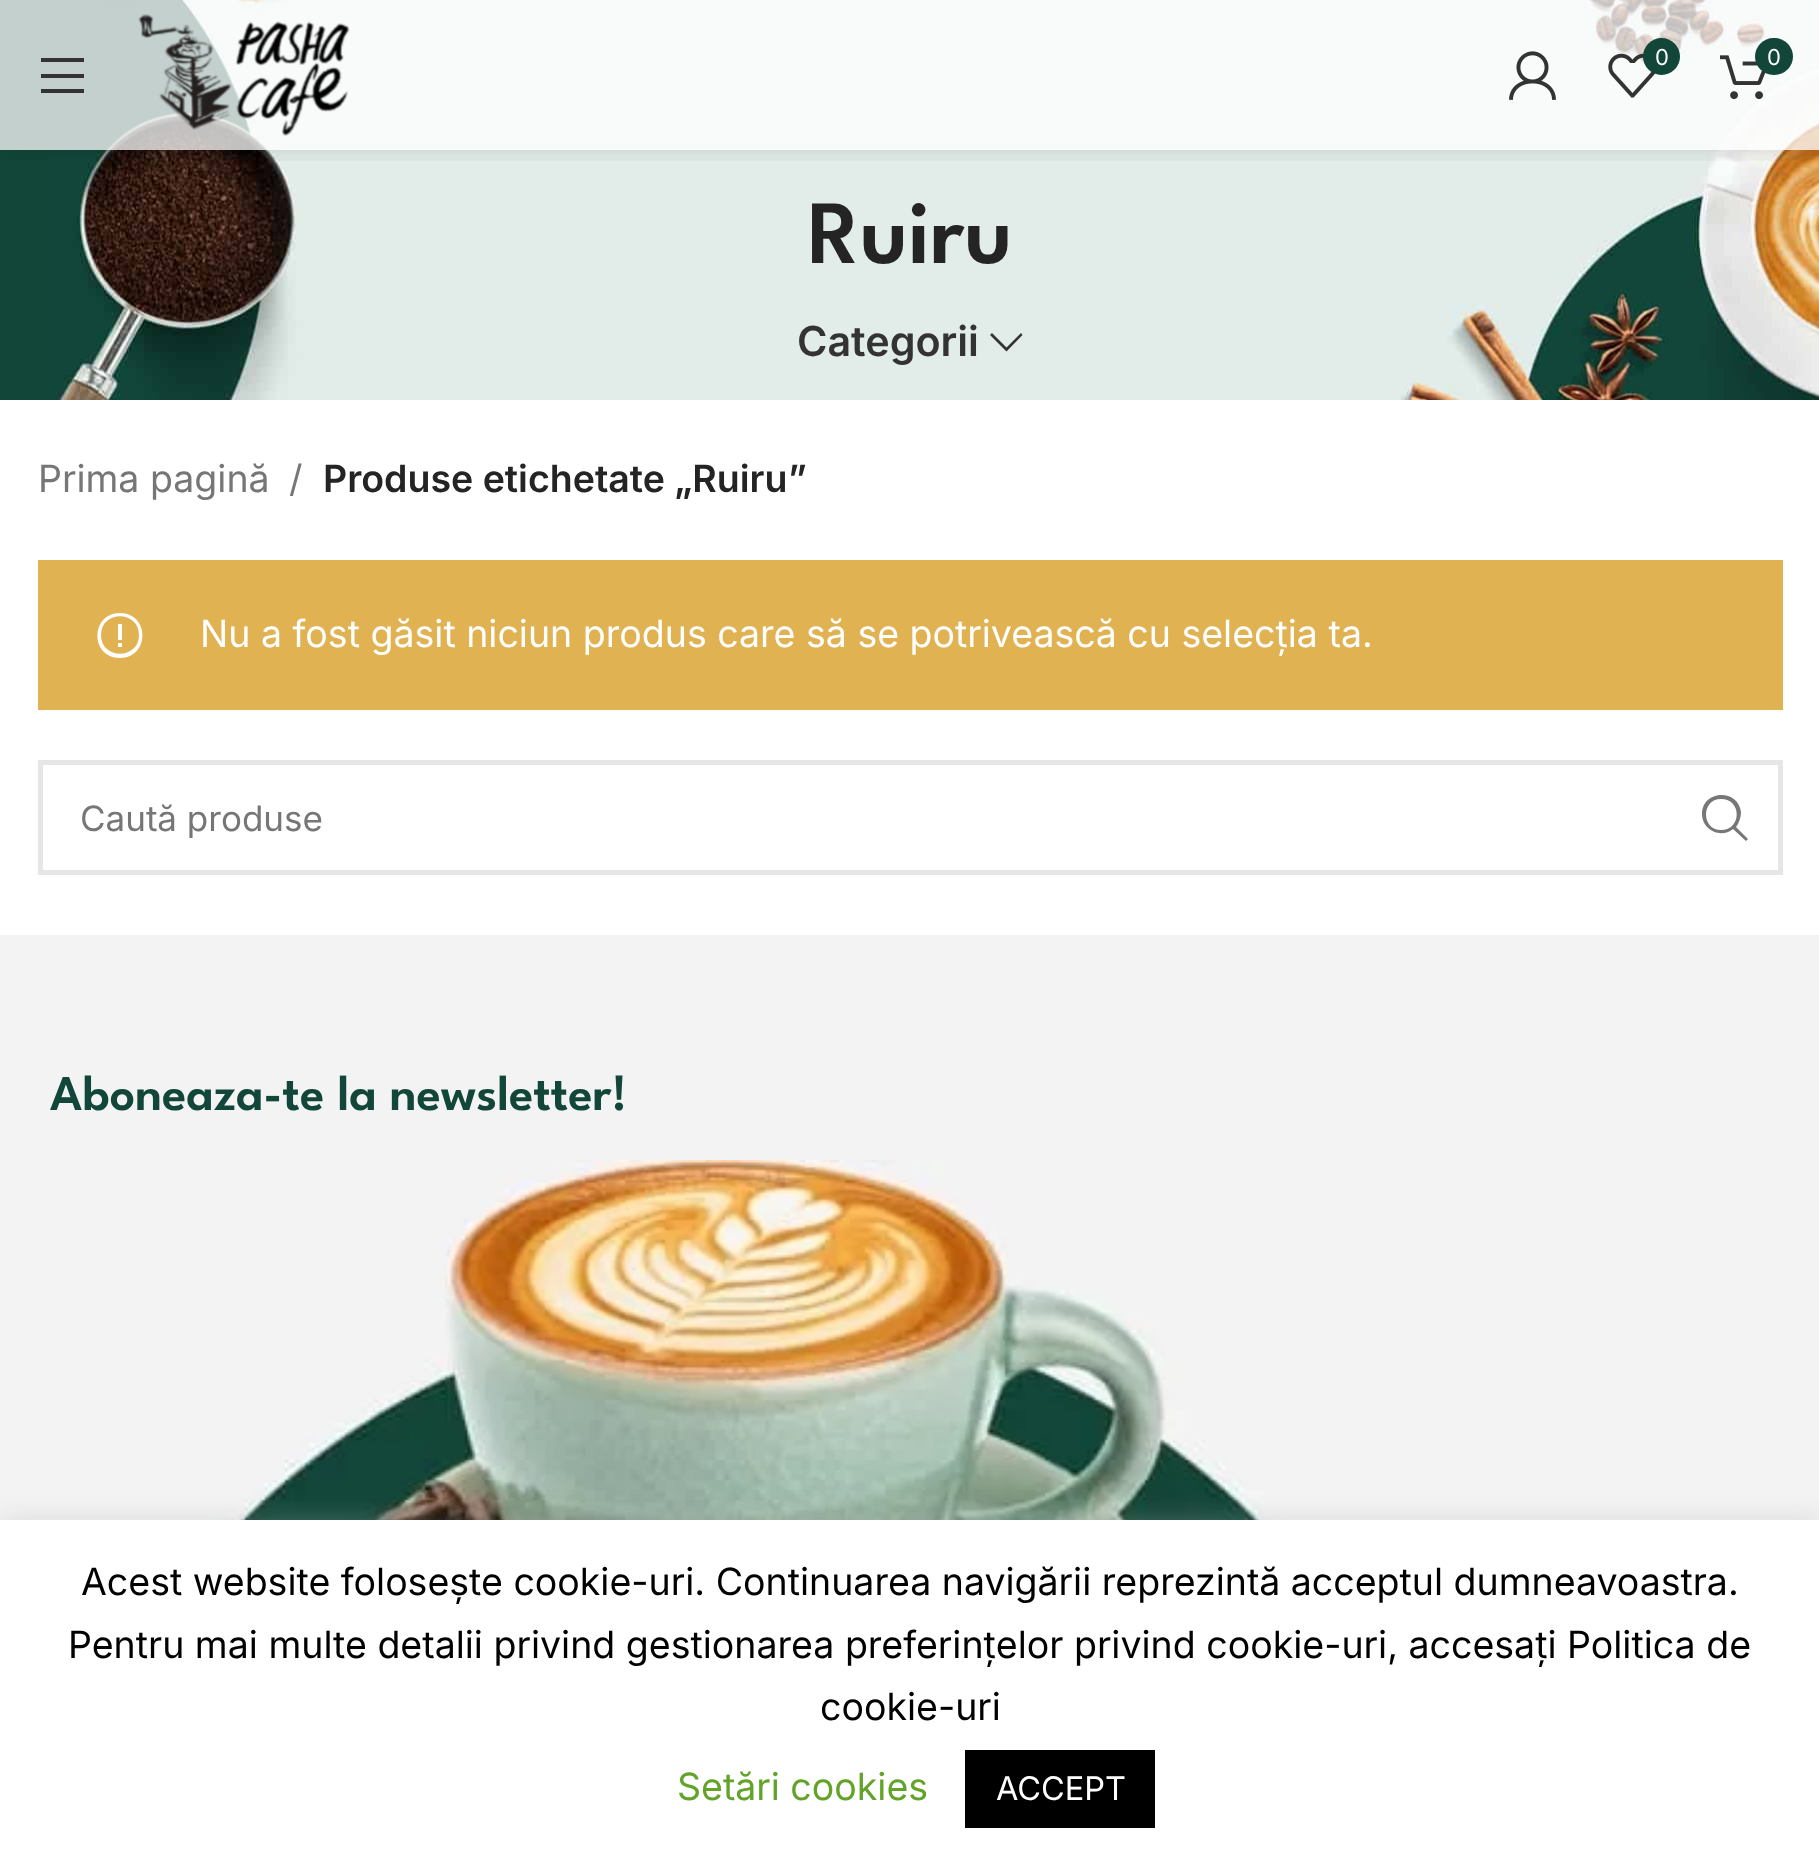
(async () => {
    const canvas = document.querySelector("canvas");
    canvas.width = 1819;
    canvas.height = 1870;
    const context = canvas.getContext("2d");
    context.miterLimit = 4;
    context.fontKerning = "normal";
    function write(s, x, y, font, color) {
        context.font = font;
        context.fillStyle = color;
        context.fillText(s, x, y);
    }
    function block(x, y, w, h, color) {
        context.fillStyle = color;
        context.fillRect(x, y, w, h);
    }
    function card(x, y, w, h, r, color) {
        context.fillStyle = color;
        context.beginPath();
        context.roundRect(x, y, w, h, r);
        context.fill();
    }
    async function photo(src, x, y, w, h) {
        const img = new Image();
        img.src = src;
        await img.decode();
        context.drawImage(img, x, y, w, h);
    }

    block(0, 0, 1819, 1870, "rgb(255, 255, 255)");
    block(0, 0, 49, 400, "rgb(17, 70, 57)");
    await photo("media/5.png", 49, 0, 1770, 400);
    context.save();
    context.beginPath();
    context.rect(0, 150, 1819, 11);
    context.clip();
    context.fillStyle = "rgba(0, 0, 0, 0.1)";
    context.filter = "blur(10px)";
    context.beginPath();
    context.rect(0, 3, 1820, 150);
    context.fill();
    context.filter = "none";
    context.restore();
    block(0, 0, 1819, 150, "rgba(255, 255, 255, 0.75)");
    context.fillStyle = "rgb(51, 51, 51)";
    context.beginPath();
    context.moveTo(41, 62);
    context.lineTo(84, 62);
    context.lineTo(84, 58);
    context.lineTo(41, 58);
    context.closePath();
    context.moveTo(41, 78);
    context.lineTo(84, 78);
    context.lineTo(84, 74);
    context.lineTo(41, 74);
    context.closePath();
    context.moveTo(41, 93);
    context.lineTo(84, 93);
    context.lineTo(84, 89);
    context.lineTo(41, 89);
    context.closePath();
    context.fill();
    await photo("media/1.png", 138, 14, 212, 122);
    await photo("media/2.png", 1509, 51, 47, 49);
    await photo("media/3.png", 1608, 53, 48, 45);
    context.fillStyle = "rgb(17, 70, 57)";
    context.beginPath();
    context.arc(1661.5, 56.5, 18.5, 0, Math.PI * 2);
    context.fill();
    write("0", 1655, 65, "22px Inter", "rgb(255, 255, 255)");
    await photo("media/4.png", 1720, 55, 46, 45);
    card(1755, 38, 38, 37, 18.5, "rgb(17, 70, 57)");
    write("0", 1767, 65, "22px Inter", "rgb(255, 255, 255)");
    write("Ruiru", 808, 263, "600 90px League Spartan", "rgb(36, 36, 36)");
    write("Categorii", 797, 356, "600 41.25px Inter", "rgb(51, 51, 51)");
    context.beginPath();
    context.moveTo(1021, 333);
    context.lineTo(1006.5, 347.5);
    context.lineTo(992, 333);
    context.lineTo(990, 335);
    context.lineTo(1006.5, 351.5);
    context.lineTo(1022.5, 335);
    context.closePath();
    context.fill();
    write("Prima pagină", 38, 492, "37.5px Inter", "rgb(118, 118, 118)");
    write("/", 289, 492, "37.5px Inter", "rgb(118, 118, 118)");
    write("Produse etichetate „Ruiru”", 323, 492, "600 37.5px Inter", "rgb(36, 36, 36)");
    block(38, 560, 1745, 150, "rgb(224, 178, 82)");
    context.fillStyle = "rgb(255, 255, 255)";
    context.beginPath();
    context.moveTo(118, 624);
    context.lineTo(118, 640);
    context.lineTo(122, 640);
    context.lineTo(122, 624);
    context.closePath();
    context.moveTo(118, 643);
    context.lineTo(118, 647);
    context.lineTo(122, 647);
    context.lineTo(122, 643);
    context.closePath();
    context.moveTo(120, 613);
    context.bezierCurveTo(90, 613, 90, 658, 120, 658);
    context.bezierCurveTo(150, 658, 150, 613, 120, 613);
    context.closePath();
    context.moveTo(101, 635);
    context.bezierCurveTo(101, 610, 139, 610, 139, 635);
    context.bezierCurveTo(139, 660, 101, 660, 101, 635);
    context.closePath();
    context.fill();
    write("Nu a fost găsit niciun produs care să se potrivească cu selecția ta.", 200, 647, "37.5px Inter", "rgb(255, 255, 255)");
    context.strokeStyle = "rgb(230, 230, 230)";
    context.lineWidth = 5;
    context.strokeRect(40.5, 762.5, 1740, 110);
    context.save();
    context.beginPath();
    context.rect(80, 795, 1508, 43);
    context.clip();
    write("Caută produse", 80, 831, "35px Inter", "rgb(118, 118, 118)");
    context.restore();
    context.fillStyle = "rgb(119, 119, 119)";
    context.beginPath();
    context.moveTo(1702, 814);
    context.bezierCurveTo(1702, 830, 1721, 839, 1733, 829);
    context.lineTo(1746, 841);
    context.lineTo(1748, 839);
    context.lineTo(1736, 827);
    context.bezierCurveTo(1739, 823, 1741, 817, 1741, 812);
    context.bezierCurveTo(1738, 788, 1702, 790, 1702, 814);
    context.closePath();
    context.moveTo(1721, 830);
    context.bezierCurveTo(1701, 830, 1701, 799, 1721, 799);
    context.bezierCurveTo(1742, 799, 1742, 830, 1721, 830);
    context.closePath();
    context.fill();
    block(0, 935, 1819, 585, "rgb(243, 243, 243)");
    write("Aboneaza-te la newsletter!", 50, 1110, "600 50px League Spartan", "rgb(17, 70, 57)");
    await photo("media/6.png", 25, 1160, 1441, 360);
    context.fillStyle = "rgba(172, 171, 171, 0.3)";
    context.filter = "blur(12.5px)";
    context.beginPath();
    context.rect(0, 1518, 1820, 350);
    context.fill();
    context.filter = "none";
    block(0, 1520, 1819, 350, "rgb(255, 255, 255)");
    write("Acest website folosește cookie-uri. Continuarea navigării reprezintă acceptul dumneavoastra.", 81, 1595, "37.5px Inter", "rgb(0, 0, 0)");
    write("Pentru mai multe detalii privind gestionarea preferințelor privind cookie-uri, accesați Politica de", 68, 1658, "37.5px Inter", "rgb(0, 0, 0)");
    write("cookie-uri", 820, 1720, "37.5px Inter", "rgb(0, 0, 0)");
    write("Setări cookies", 677, 1800, "37.5px Inter", "rgb(98, 163, 41)");
    block(965, 1750, 190, 78, "rgb(0, 0, 0)");
    write("ACCEPT", 996, 1800, "32.5px Inter", "rgb(255, 255, 255)");
})();
